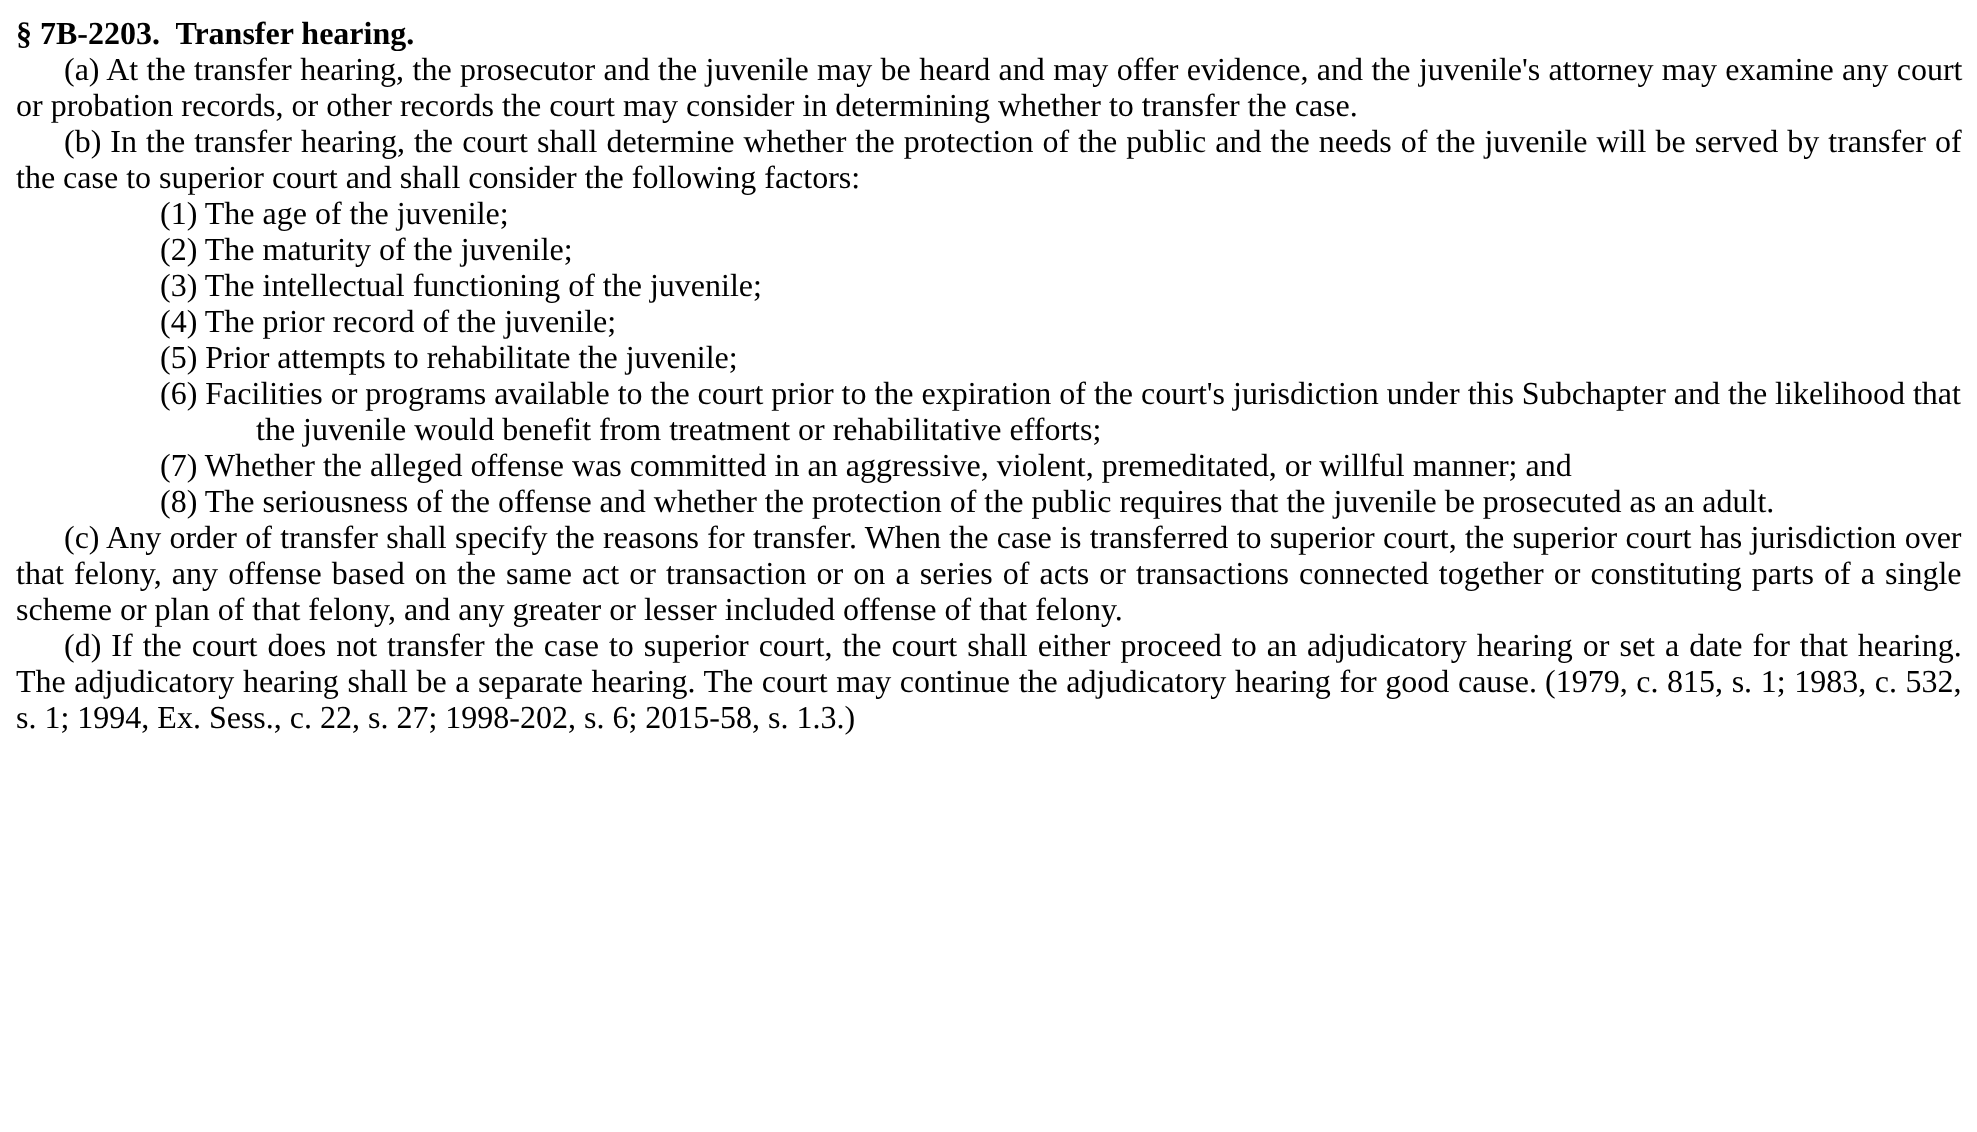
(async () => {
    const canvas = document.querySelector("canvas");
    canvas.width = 1977;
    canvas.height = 1132;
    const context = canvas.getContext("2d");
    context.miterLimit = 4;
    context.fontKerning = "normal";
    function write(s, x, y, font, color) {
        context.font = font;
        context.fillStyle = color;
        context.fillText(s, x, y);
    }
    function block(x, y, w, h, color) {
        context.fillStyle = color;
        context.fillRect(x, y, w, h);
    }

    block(0, 0, 1977, 1132, "rgb(255, 255, 255)");
    write("§ 7B-2203.  Transfer hearing.", 16, 44, "bold 32px Liberation Serif", "rgb(0, 0, 0)");
    context.wordSpacing = "0.4px";
    write("(a) At the transfer hearing, the prosecutor and the juvenile may be heard and may offer evidence, and the juvenile's attorney may examine any court", 64, 80, "32px Liberation Serif", "rgb(0, 0, 0)");
    context.wordSpacing = "0px";
    write("or probation records, or other records the court may consider in determining whether to transfer the case.", 16, 116, "32px Liberation Serif", "rgb(0, 0, 0)");
    context.wordSpacing = "1.05px";
    write("(b) In the transfer hearing, the court shall determine whether the protection of the public and the needs of the juvenile will be served by transfer of", 64, 152, "32px Liberation Serif", "rgb(0, 0, 0)");
    context.wordSpacing = "0px";
    write("the case to superior court and shall consider the following factors:", 16, 188, "32px Liberation Serif", "rgb(0, 0, 0)");
    write("(1) The age of the juvenile;", 160, 224, "32px Liberation Serif", "rgb(0, 0, 0)");
    write("(2) The maturity of the juvenile;", 160, 260, "32px Liberation Serif", "rgb(0, 0, 0)");
    write("(3) The intellectual functioning of the juvenile;", 160, 296, "32px Liberation Serif", "rgb(0, 0, 0)");
    write("(4) The prior record of the juvenile;", 160, 332, "32px Liberation Serif", "rgb(0, 0, 0)");
    write("(5) Prior attempts to rehabilitate the juvenile;", 160, 368, "32px Liberation Serif", "rgb(0, 0, 0)");
    write("(6) Facilities or programs available to the court prior to the expiration of the court's jurisdiction under this Subchapter and the likelihood that", 160, 404, "32px Liberation Serif", "rgb(0, 0, 0)");
    write("the juvenile would benefit from treatment or rehabilitative efforts;", 256, 440, "32px Liberation Serif", "rgb(0, 0, 0)");
    write("(7) Whether the alleged offense was committed in an aggressive, violent, premeditated, or willful manner; and", 160, 476, "32px Liberation Serif", "rgb(0, 0, 0)");
    write("(8) The seriousness of the offense and whether the protection of the public requires that the juvenile be prosecuted as an adult.", 160, 512, "32px Liberation Serif", "rgb(0, 0, 0)");
    context.wordSpacing = "0.3px";
    write("(c) Any order of transfer shall specify the reasons for transfer. When the case is transferred to superior court, the superior court has jurisdiction over", 64, 548, "32px Liberation Serif", "rgb(0, 0, 0)");
    context.wordSpacing = "2.1px";
    write("that felony, any offense based on the same act or transaction or on a series of acts or transactions connected together or constituting parts of a single", 16, 584, "32px Liberation Serif", "rgb(0, 0, 0)");
    context.wordSpacing = "0px";
    write("scheme or plan of that felony, and any greater or lesser included offense of that felony.", 16, 620, "32px Liberation Serif", "rgb(0, 0, 0)");
    context.wordSpacing = "2px";
    write("(d) If the court does not transfer the case to superior court, the court shall either proceed to an adjudicatory hearing or set a date for that hearing.", 64, 656, "32px Liberation Serif", "rgb(0, 0, 0)");
    context.wordSpacing = "0.6px";
    write("The adjudicatory hearing shall be a separate hearing. The court may continue the adjudicatory hearing for good cause.", 16, 692, "32px Liberation Serif", "rgb(0, 0, 0)");
    write("(1979, c. 815, s. 1; 1983, c. 532,", 1545, 692, "32px Liberation Serif", "rgb(0, 0, 0)");
    context.wordSpacing = "0px";
    write("s. 1; 1994, Ex. Sess., c. 22, s. 27; 1998-202, s. 6; 2015-58, s. 1.3.)", 16, 728, "32px Liberation Serif", "rgb(0, 0, 0)");
})();
